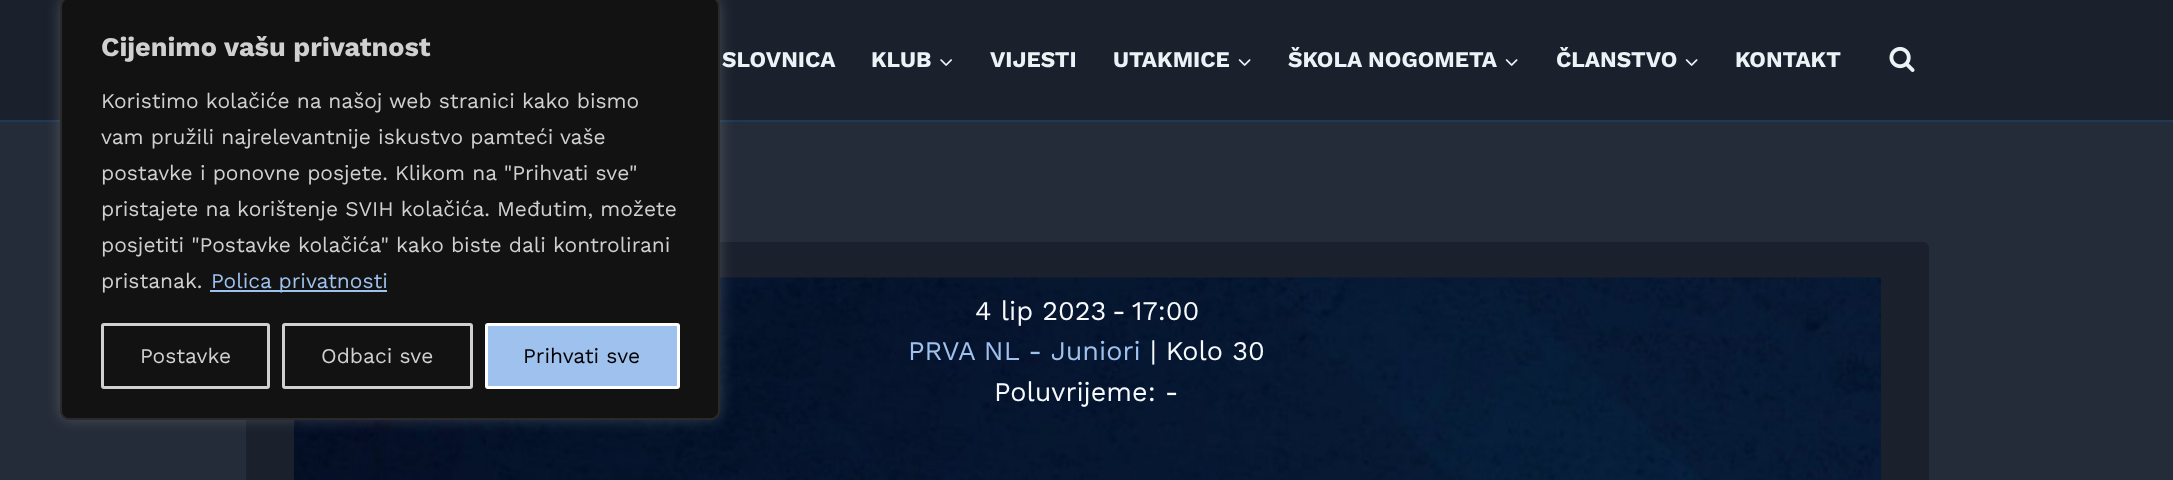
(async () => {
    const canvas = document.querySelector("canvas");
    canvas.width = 2173;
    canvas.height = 480;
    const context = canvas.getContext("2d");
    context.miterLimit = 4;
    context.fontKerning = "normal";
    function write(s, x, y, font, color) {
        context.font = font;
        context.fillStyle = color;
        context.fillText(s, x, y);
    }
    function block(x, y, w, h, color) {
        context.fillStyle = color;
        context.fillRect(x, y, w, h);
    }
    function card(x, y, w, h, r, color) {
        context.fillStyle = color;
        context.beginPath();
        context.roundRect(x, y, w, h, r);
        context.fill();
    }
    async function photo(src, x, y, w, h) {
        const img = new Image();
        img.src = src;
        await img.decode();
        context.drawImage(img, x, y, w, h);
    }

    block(0, 0, 2173, 480, "rgb(37, 44, 57)");
    block(0, 0, 2173, 120, "rgb(26, 32, 44)");
    block(0, 120, 2173, 2, "rgb(31, 56, 86)");
    card(246, 242, 1683, 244, 6, "rgb(26, 32, 44)");
    await photo("media/4.png", 294, 277, 1587, 203);
    context.fillStyle = "rgba(172, 171, 171, 0.3)";
    context.filter = "blur(7.5px)";
    context.beginPath();
    context.roundRect(60, -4, 660, 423, 9);
    context.fill();
    context.filter = "none";
    context.fillStyle = "rgb(18, 18, 18)";
    context.beginPath();
    context.roundRect(61, -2, 658, 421, 8);
    context.fill();
    context.strokeStyle = "rgb(42, 42, 42)";
    context.lineWidth = 2;
    context.stroke();
    write("Cijenimo vašu privatnost", 101, 56, "bold 27px Work Sans", "rgb(208, 208, 208)");
    write("Koristimo kolačiće na našoj web stranici kako bismo", 101, 108, "21px Work Sans", "rgb(208, 208, 208)");
    write("vam pružili najrelevantnije iskustvo pamteći vaše", 101, 144, "21px Work Sans", "rgb(208, 208, 208)");
    write("postavke i ponovne posjete. Klikom na \"Prihvati sve\"", 101, 180, "21px Work Sans", "rgb(208, 208, 208)");
    write("pristajete na korištenje SVIH kolačića. Međutim, možete", 101, 216, "21px Work Sans", "rgb(208, 208, 208)");
    write("posjetiti \"Postavke kolačića\" kako biste dali kontrolirani", 101, 252, "21px Work Sans", "rgb(208, 208, 208)");
    write("pristanak.", 101, 288, "21px Work Sans", "rgb(208, 208, 208)");
    block(210, 290, 177, 2, "rgb(158, 193, 237)");
    write("Polica privatnosti", 211, 288, "21px Work Sans", "rgb(158, 193, 237)");
    context.beginPath();
    context.roundRect(102.5, 324.5, 166, 63, 1.5);
    context.strokeStyle = "rgb(208, 208, 208)";
    context.lineWidth = 3;
    context.stroke();
    write("Postavke", 140, 363, "21px Work Sans", "rgb(208, 208, 208)");
    context.beginPath();
    context.roundRect(283.5, 324.5, 188, 63, 1.5);
    context.stroke();
    write("Odbaci sve", 321, 363, "21px Work Sans", "rgb(208, 208, 208)");
    context.fillStyle = "rgb(158, 193, 237)";
    context.beginPath();
    context.roundRect(486.5, 324.5, 192, 63, 1.5);
    context.fill();
    context.strokeStyle = "rgb(255, 255, 255)";
    context.stroke();
    write("Prihvati sve", 523, 363, "21px Work Sans", "rgb(0, 0, 0)");
    write("SLOVNICA", 722, 67, "bold 22.5px Work Sans", "rgb(237, 242, 247)");
    write("KLUB", 871, 67, "bold 22.5px Work Sans", "rgb(237, 242, 247)");
    await photo("media/1.png", 940, 59, 12, 7);
    write("VIJESTI", 990, 67, "bold 22.5px Work Sans", "rgb(237, 242, 247)");
    write("UTAKMICE", 1113, 67, "bold 22.5px Work Sans", "rgb(237, 242, 247)");
    await photo("media/2.png", 1238, 59, 13, 7);
    write("ŠKOLA NOGOMETA", 1288, 67, "bold 22.5px Work Sans", "rgb(237, 242, 247)");
    await photo("media/2.png", 1505, 59, 13, 7);
    write("ČLANSTVO", 1556, 67, "bold 22.5px Work Sans", "rgb(237, 242, 247)");
    await photo("media/2.png", 1685, 59, 13, 7);
    write("KONTAKT", 1735, 67, "bold 22.5px Work Sans", "rgb(237, 242, 247)");
    await photo("media/3.png", 1889, 46, 26, 26);
    write("4 lip 2023", 975, 320, "27px Work Sans", "rgb(247, 250, 252)");
    write("-", 1112, 320, "27px Work Sans", "rgb(247, 250, 252)");
    write("17:00", 1132, 320, "27px Work Sans", "rgb(247, 250, 252)");
    write("PRVA NL - Juniori", 908, 360, "27px Work Sans", "rgb(158, 193, 237)");
    write("| Kolo 30", 1150, 360, "27px Work Sans", "rgb(247, 250, 252)");
    write("Poluvrijeme: -", 994, 401, "27px Work Sans", "rgb(247, 250, 252)");
})();
